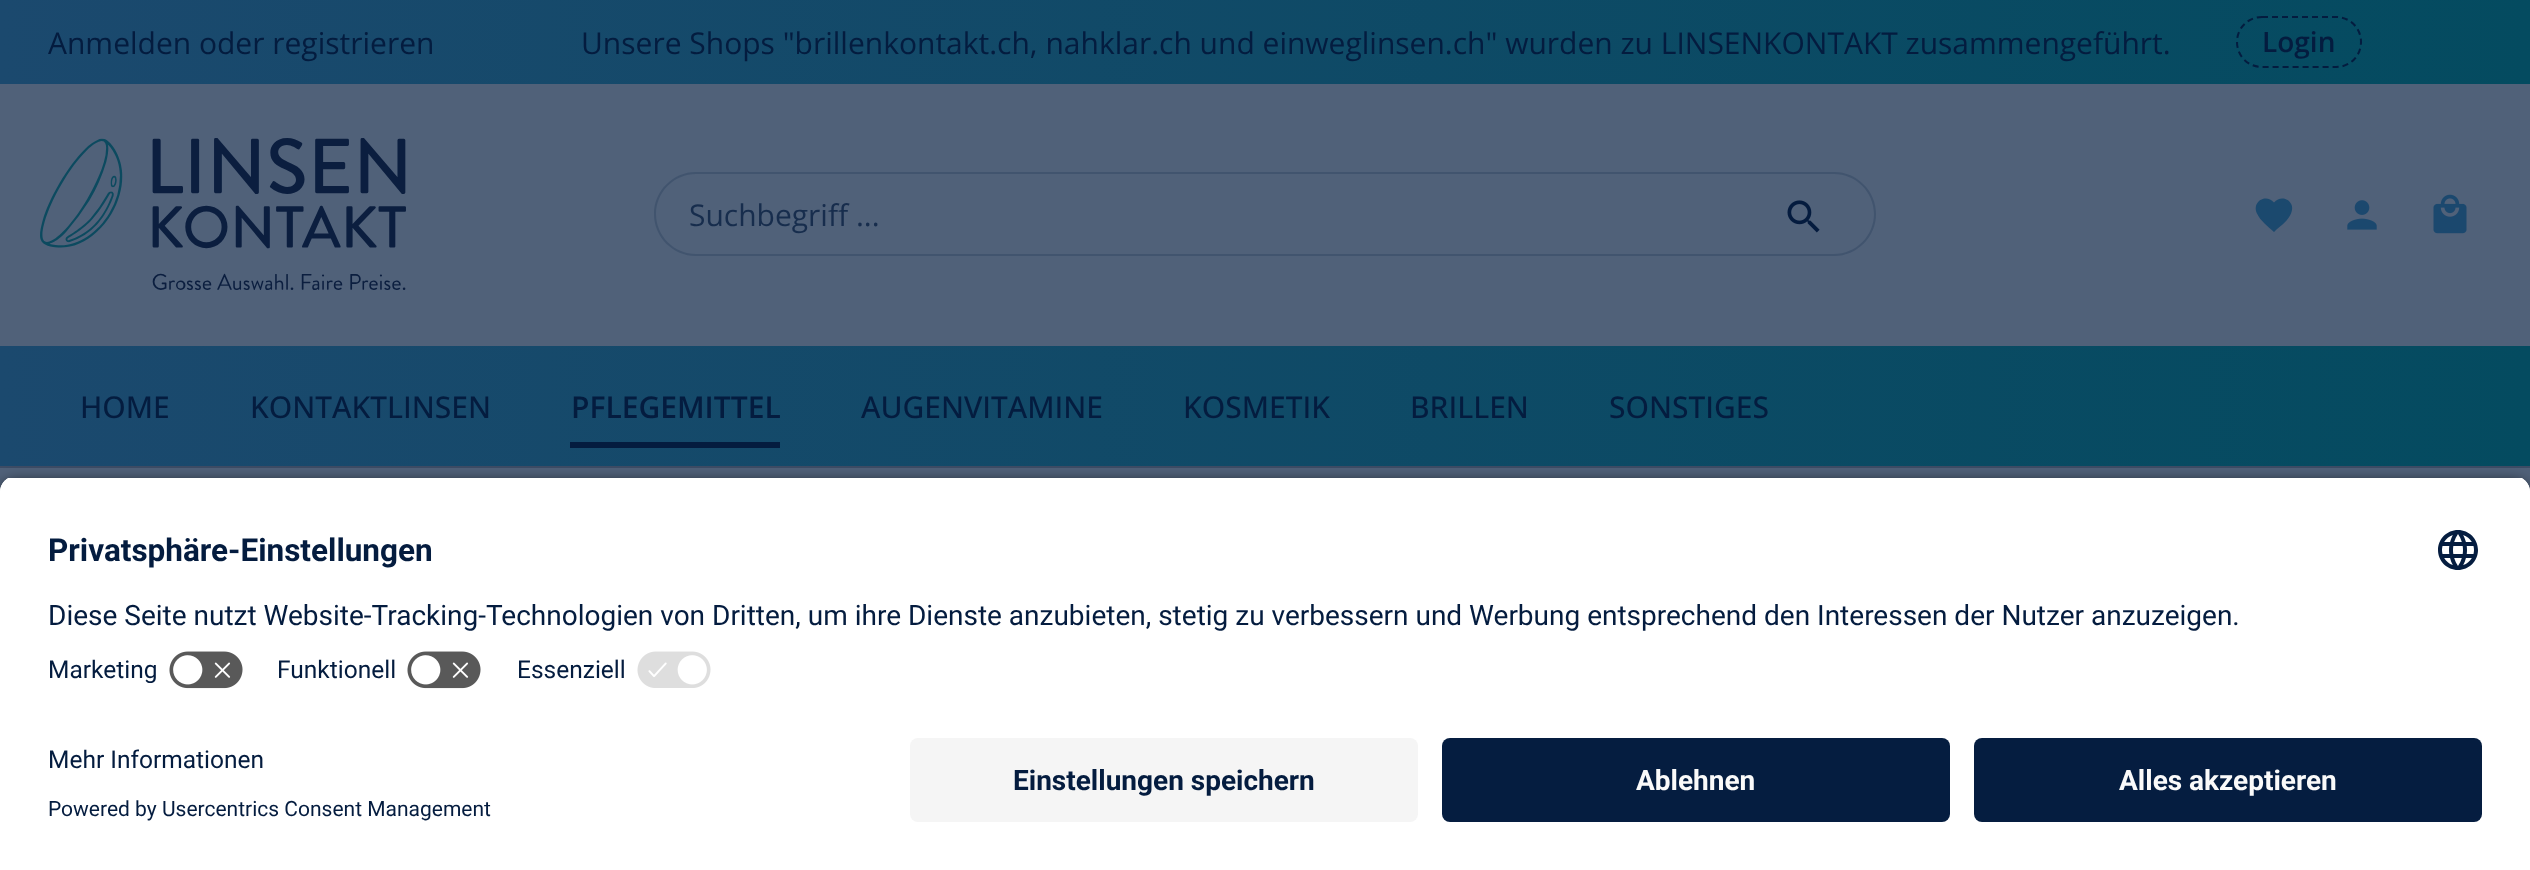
(async () => {
    const canvas = document.querySelector("canvas");
    canvas.width = 2530;
    canvas.height = 870;
    const context = canvas.getContext("2d");
    context.miterLimit = 4;
    context.fontKerning = "normal";
    function write(s, x, y, font, color) {
        context.font = font;
        context.fillStyle = color;
        context.fillText(s, x, y);
    }
    function block(x, y, w, h, color) {
        context.fillStyle = color;
        context.fillRect(x, y, w, h);
    }
    function card(x, y, w, h, r, color) {
        context.fillStyle = color;
        context.beginPath();
        context.roundRect(x, y, w, h, r);
        context.fill();
    }
    async function photo(src, x, y, w, h) {
        const img = new Image();
        img.src = src;
        await img.decode();
        context.drawImage(img, x, y, w, h);
    }
    let gradient;

    block(0, 0, 2530, 870, "rgb(80, 97, 121)");
    block(0, 466, 2530, 2, "rgb(61, 76, 101)");
    gradient = context.createLinearGradient(0, 42, 2530, 42);
    gradient.addColorStop(0, "rgb(27, 73, 110)");
    gradient.addColorStop(1, "rgb(4, 75, 96)");
    context.fillStyle = gradient;
    context.fillRect(0, 0, 2530, 84);
    write("Anmelden oder registrieren", 48, 54, "30px Open Sans", "rgb(4, 28, 63)");
    write("Unsere Shops \"brillenkontakt.ch, nahklar.ch und einweglinsen.ch\" wurden zu LINSENKONTAKT zusammengeführt.", 581, 54, "30px Open Sans", "rgb(4, 28, 63)");
    context.beginPath();
    context.moveTo(2262, 17);
    context.lineTo(2336, 17);
    context.bezierCurveTo(2350, 17, 2361, 28, 2361, 42);
    context.bezierCurveTo(2361, 56, 2350, 67, 2336, 67);
    context.lineTo(2262, 67);
    context.bezierCurveTo(2248, 67, 2237, 56, 2237, 42);
    context.bezierCurveTo(2237, 28, 2248, 17, 2262, 17);
    context.closePath();
    context.strokeStyle = "rgb(4, 28, 63)";
    context.lineWidth = 2;
    context.setLineDash([6, 4]);
    context.stroke();
    write("Login", 2262, 52, "600 28px Open Sans", "rgb(4, 28, 63)");
    await photo("media/1.png", 40, 138, 366, 152);
    context.fillStyle = "rgb(65, 84, 110)";
    context.beginPath();
    context.moveTo(696, 172);
    context.lineTo(1736, 172);
    context.lineTo(1736, 256);
    context.lineTo(696, 256);
    context.bezierCurveTo(673, 256, 654, 237, 654, 214);
    context.bezierCurveTo(654, 191, 673, 172, 696, 172);
    context.closePath();
    context.moveTo(696, 174);
    context.lineTo(1736, 174);
    context.lineTo(1736, 254);
    context.lineTo(696, 254);
    context.bezierCurveTo(674, 254, 656, 236, 656, 214);
    context.bezierCurveTo(656, 192, 674, 174, 696, 174);
    context.closePath();
    context.fill("evenodd");
    write("Suchbegriff ...", 689, 226, "30px Open Sans", "rgb(23, 45, 77)");
    context.fillStyle = "rgb(80, 97, 121)";
    context.beginPath();
    context.roundRect(1734, 172, 142, 84, [0, 42, 42, 0]);
    context.fill();
    context.fillStyle = "rgb(65, 84, 110)";
    context.beginPath();
    context.moveTo(1734, 172);
    context.lineTo(1834, 172);
    context.bezierCurveTo(1857, 172, 1876, 191, 1876, 214);
    context.bezierCurveTo(1876, 237, 1857, 256, 1834, 256);
    context.lineTo(1734, 256);
    context.closePath();
    context.moveTo(1734, 174);
    context.lineTo(1834, 174);
    context.bezierCurveTo(1856, 174, 1874, 192, 1874, 214);
    context.bezierCurveTo(1874, 236, 1856, 254, 1834, 254);
    context.lineTo(1734, 254);
    context.closePath();
    context.fill("evenodd");
    await photo("media/2.png", 1787, 200, 33, 33);
    context.fillStyle = "rgb(27, 73, 110)";
    context.beginPath();
    context.moveTo(2274, 232);
    context.bezierCurveTo(2268.5, 227, 2260, 220.5, 2257, 213.5);
    context.bezierCurveTo(2251.5, 201.5, 2266, 193, 2274, 202.5);
    context.bezierCurveTo(2282, 193, 2296.5, 201.5, 2291, 213.5);
    context.bezierCurveTo(2288.5, 220, 2282, 225, 2276.5, 229.5);
    context.closePath();
    context.fill("evenodd");
    await photo("media/3.png", 2347, 200, 30, 30);
    await photo("media/4.png", 2433, 194, 34, 40);
    gradient = context.createLinearGradient(0, 405, 2530, 405);
    gradient.addColorStop(0, "rgb(27, 73, 110)");
    gradient.addColorStop(1, "rgb(4, 75, 96)");
    context.fillStyle = gradient;
    context.fillRect(0, 346, 2530, 120);
    write("HOME", 80, 418, "500 30px Open Sans", "rgb(4, 28, 63)");
    write("KONTAKTLINSEN", 250, 418, "500 30px Open Sans", "rgb(4, 28, 63)");
    write("PFLEGEMITTEL", 571, 418, "600 30px Open Sans", "rgb(4, 28, 63)");
    block(570, 442, 210, 6, "rgb(4, 28, 63)");
    write("AUGENVITAMINE", 861, 418, "500 30px Open Sans", "rgb(4, 28, 63)");
    write("KOSMETIK", 1183, 418, "500 30px Open Sans", "rgb(4, 28, 63)");
    write("BRILLEN", 1410, 418, "500 30px Open Sans", "rgb(4, 28, 63)");
    write("SONSTIGES", 1609, 418, "500 30px Open Sans", "rgb(4, 28, 63)");
    context.fillStyle = "rgba(0, 0, 0, 0.8)";
    context.filter = "blur(7px)";
    context.beginPath();
    context.roundRect(0, 482, 2530, 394, 16);
    context.fill();
    context.filter = "none";
    context.save();
    context.beginPath();
    context.roundRect(0, 476, 2530, 246, [16, 16, 0, 0]);
    context.clip();
    block(0, 478, 2530, 244, "rgb(255, 255, 255)");
    block(0, 478, 2530, 164, "rgb(255, 255, 255)");
    context.restore();
    write("Privatsphäre-Einstellungen", 48, 561, "bold 31.5px Roboto", "rgb(4, 28, 63)");
    await photo("media/5.png", 2438, 530, 40, 40);
    write("Diese Seite nutzt Website-Tracking-Technologien von Dritten, um ihre Dienste anzubieten, stetig zu verbessern und Werbung entsprechend den Interessen der Nutzer anzuzeigen.", 48, 625, "28px Roboto", "rgb(4, 28, 63)");
    write("Marketing", 48, 678, "24.5px Roboto", "rgb(4, 28, 63)");
    await photo("media/6.png", 169, 651, 74, 38);
    write("Funktionell", 277, 678, "24.5px Roboto", "rgb(4, 28, 63)");
    await photo("media/6.png", 407, 651, 74, 38);
    write("Essenziell", 517, 678, "24.5px Roboto", "rgb(4, 28, 63)");
    await photo("media/7.png", 637, 651, 74, 37);
    block(0, 722, 2530, 148, "rgb(255, 255, 255)");
    write("Mehr Informationen", 48, 768, "24.5px Roboto", "rgb(4, 28, 63)");
    write("Powered by Usercentrics Consent Management", 48, 816, "21px Roboto", "rgb(4, 28, 63)");
    card(910, 738, 508, 84, 8, "rgb(245, 245, 245)");
    write("Einstellungen speichern", 1013, 790, "bold 28px Roboto", "rgb(4, 28, 63)");
    card(1442, 738, 508, 84, 8, "rgb(5, 29, 64)");
    write("Ablehnen", 1636, 790, "bold 28px Roboto", "rgb(250, 250, 250)");
    card(1974, 738, 508, 84, 8, "rgb(5, 29, 64)");
    write("Alles akzeptieren", 2119, 790, "bold 28px Roboto", "rgb(250, 250, 250)");
})();
